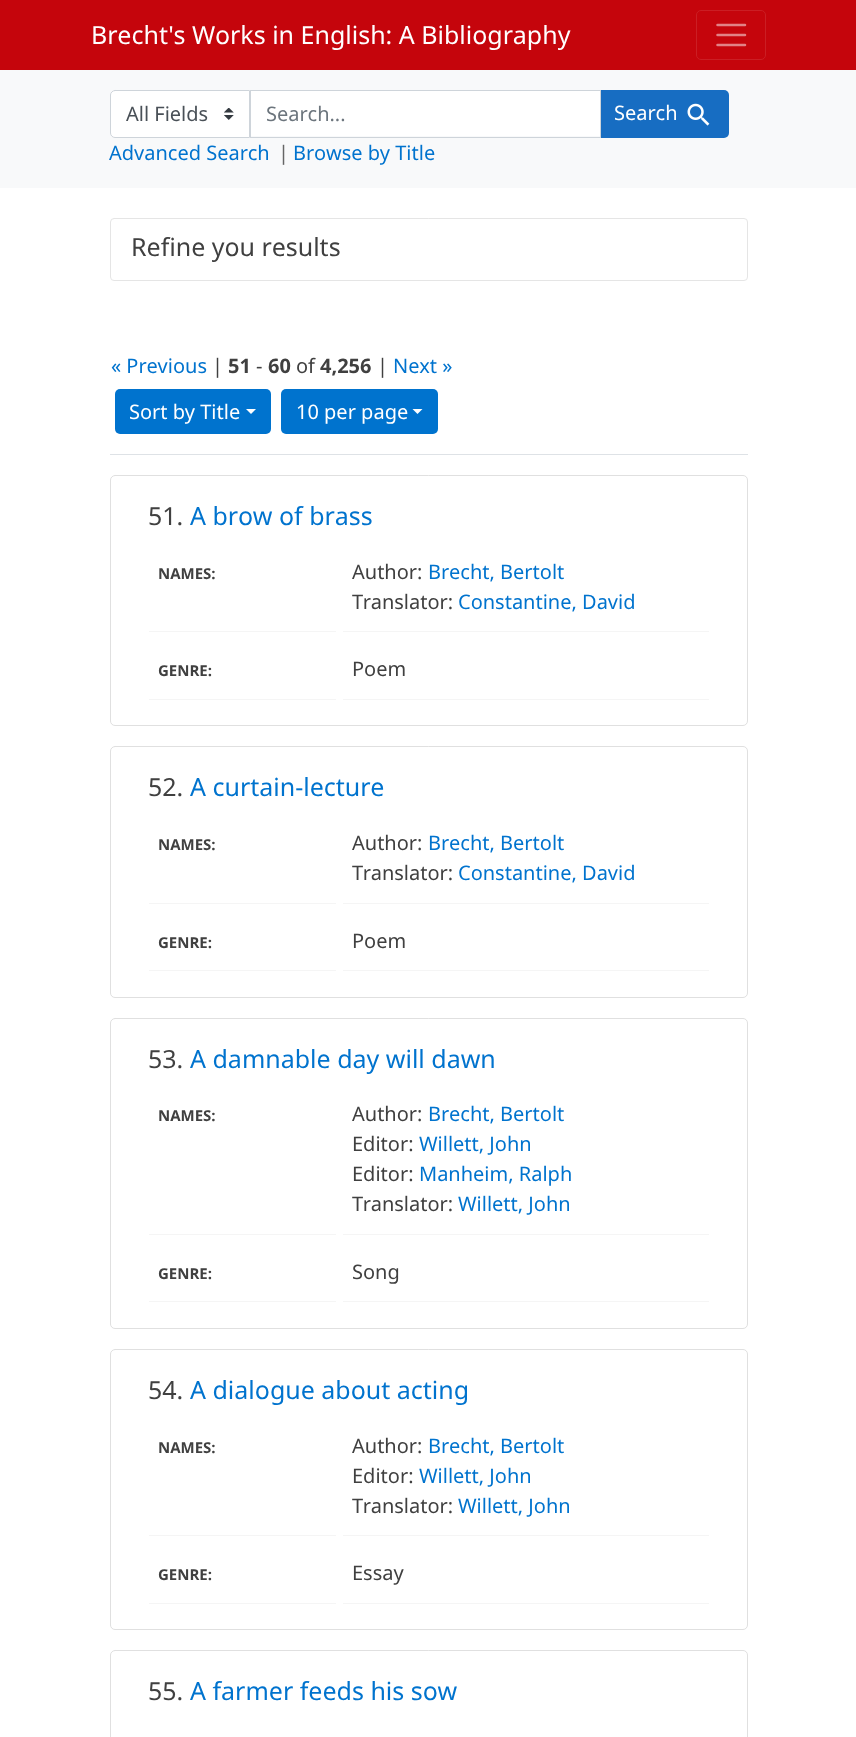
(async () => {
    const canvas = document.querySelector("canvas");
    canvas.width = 856;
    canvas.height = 1737;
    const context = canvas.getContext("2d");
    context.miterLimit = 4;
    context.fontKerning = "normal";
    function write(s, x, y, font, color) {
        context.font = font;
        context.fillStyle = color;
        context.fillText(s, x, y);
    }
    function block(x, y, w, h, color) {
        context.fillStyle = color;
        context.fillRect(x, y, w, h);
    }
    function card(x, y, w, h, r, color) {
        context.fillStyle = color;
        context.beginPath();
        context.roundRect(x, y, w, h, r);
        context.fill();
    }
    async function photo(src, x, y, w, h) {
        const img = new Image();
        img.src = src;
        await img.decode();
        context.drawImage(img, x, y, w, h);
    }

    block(0, 0, 856, 1737, "rgb(255, 255, 255)");
    block(0, 0, 856, 70, "rgb(197, 5, 12)");
    write("Brecht's Works in English: A Bibliography", 91, 44, "25px Noto Sans", "rgb(255, 255, 255)");
    context.beginPath();
    context.roundRect(696.5, 10.5, 69, 49, 4.5);
    context.strokeStyle = "rgb(203, 30, 36)";
    context.stroke();
    context.beginPath();
    context.moveTo(717.5, 25);
    context.lineTo(745, 25);
    context.moveTo(717.5, 35);
    context.lineTo(745, 35);
    context.moveTo(717.5, 45);
    context.lineTo(745, 45);
    context.strokeStyle = "rgb(226, 130, 134)";
    context.lineWidth = 2.5;
    context.lineCap = "round";
    context.stroke();
    block(0, 70, 856, 118, "rgb(248, 249, 250)");
    context.fillStyle = "rgb(255, 255, 255)";
    context.beginPath();
    context.roundRect(110, 90, 140, 48, [5, 0, 0, 5]);
    context.fill();
    await photo("media/1.png", 224, 108, 10, 12);
    context.beginPath();
    context.roundRect(110.5, 90.5, 139, 47, [4.5, 0, 0, 4.5]);
    context.strokeStyle = "rgb(206, 212, 218)";
    context.lineWidth = 1;
    context.stroke();
    write("All Fields", 126, 121, "20px Noto Sans", "rgb(73, 80, 87)");
    block(251, 91, 349, 45, "rgb(255, 255, 255)");
    context.fillStyle = "rgb(23, 109, 194)";
    context.beginPath();
    context.roundRect(600, 90, 129, 48, [0, 5, 5, 0]);
    context.fill();
    context.strokeRect(250.5, 90.5, 350, 47);
    write("Search...", 266, 121, "20px Noto Sans", "rgb(108, 117, 125)");
    write("Search", 614, 120, "20px Noto Sans", "rgb(255, 255, 255)");
    await photo("media/2.png", 687, 103, 23, 23);
    write("Advanced Search", 109, 160, "20px Noto Sans", "rgb(0, 115, 206)");
    write("|", 278, 160, "20px Noto Sans", "rgb(101, 101, 101)");
    write("Browse by Title", 293, 160, "20px Noto Sans", "rgb(0, 115, 206)");
    context.beginPath();
    context.roundRect(110.5, 218.5, 637, 62, 3.5);
    context.strokeStyle = "rgb(229, 229, 229)";
    context.stroke();
    write("Refine you results", 131, 256, "25px Noto Sans", "rgb(64, 64, 64)");
    block(110, 454, 638, 1, "rgb(222, 226, 230)");
    write("« Previous", 111, 373, "20px Noto Sans", "rgb(0, 115, 206)");
    write("|", 212, 373, "20px Noto Sans", "rgb(64, 64, 64)");
    write("51", 228, 373, "bold 20px Noto Sans", "rgb(64, 64, 64)");
    write("-", 256, 373, "20px Noto Sans", "rgb(64, 64, 64)");
    write("60", 268, 373, "bold 20px Noto Sans", "rgb(64, 64, 64)");
    write("of", 296, 373, "20px Noto Sans", "rgb(64, 64, 64)");
    write("4,256", 320, 373, "bold 20px Noto Sans", "rgb(64, 64, 64)");
    write("|", 377, 373, "20px Noto Sans", "rgb(64, 64, 64)");
    write("Next »", 393, 373, "20px Noto Sans", "rgb(0, 115, 206)");
    card(115, 389, 156, 45, 5, "rgb(0, 115, 206)");
    write("Sort by Title", 129, 419, "20px Noto Sans", "rgb(255, 255, 255)");
    context.beginPath();
    context.moveTo(246, 409);
    context.lineTo(256, 409);
    context.lineTo(251, 414);
    context.closePath();
    context.fill();
    card(281, 389, 157, 45, 5, "rgb(0, 115, 206)");
    write("10 per page", 296, 419, "20px Noto Sans", "rgb(255, 255, 255)");
    context.beginPath();
    context.moveTo(412.5, 409);
    context.lineTo(422.5, 409);
    context.lineTo(417.5, 414);
    context.closePath();
    context.fill();
    context.beginPath();
    context.roundRect(110.5, 475.5, 637, 250, 4.5);
    context.strokeStyle = "rgb(224, 224, 224)";
    context.stroke();
    write("51.", 148, 525, "25px Noto Sans", "rgb(64, 64, 64)");
    write("A brow of brass", 190, 525, "25px Noto Sans", "rgb(0, 115, 206)");
    block(149, 631, 187, 1, "rgb(245, 245, 245)");
    write("NAMES:", 158, 579, "bold 15px Noto Sans", "rgb(64, 64, 64)");
    block(343, 631, 366, 1, "rgb(245, 245, 245)");
    write("Author:", 352, 579, "20px Noto Sans", "rgb(64, 64, 64)");
    write("Brecht, Bertolt", 428, 579, "20px Noto Sans", "rgb(0, 115, 206)");
    write("Translator:", 352, 609, "20px Noto Sans", "rgb(64, 64, 64)");
    write("Constantine, David", 458, 609, "20px Noto Sans", "rgb(0, 115, 206)");
    block(149, 699, 187, 1, "rgb(245, 245, 245)");
    write("GENRE:", 158, 676, "bold 15px Noto Sans", "rgb(64, 64, 64)");
    block(343, 699, 366, 1, "rgb(245, 245, 245)");
    write("Poem", 352, 676, "20px Noto Sans", "rgb(64, 64, 64)");
    context.beginPath();
    context.roundRect(110.5, 746.5, 637, 251, 4.5);
    context.stroke();
    write("52.", 148, 796, "25px Noto Sans", "rgb(64, 64, 64)");
    write("A curtain-lecture", 190, 796, "25px Noto Sans", "rgb(0, 115, 206)");
    block(149, 903, 187, 1, "rgb(245, 245, 245)");
    write("NAMES:", 158, 850, "bold 15px Noto Sans", "rgb(64, 64, 64)");
    block(343, 903, 366, 1, "rgb(245, 245, 245)");
    write("Author:", 352, 850, "20px Noto Sans", "rgb(64, 64, 64)");
    write("Brecht, Bertolt", 428, 850, "20px Noto Sans", "rgb(0, 115, 206)");
    write("Translator:", 352, 880, "20px Noto Sans", "rgb(64, 64, 64)");
    write("Constantine, David", 458, 880, "20px Noto Sans", "rgb(0, 115, 206)");
    block(149, 970, 187, 1, "rgb(245, 245, 245)");
    write("GENRE:", 158, 948, "bold 15px Noto Sans", "rgb(64, 64, 64)");
    block(343, 970, 366, 1, "rgb(245, 245, 245)");
    write("Poem", 352, 948, "20px Noto Sans", "rgb(64, 64, 64)");
    context.beginPath();
    context.roundRect(110.5, 1018.5, 637, 310, 4.5);
    context.stroke();
    write("53.", 148, 1068, "25px Noto Sans", "rgb(64, 64, 64)");
    write("A damnable day will dawn", 190, 1068, "25px Noto Sans", "rgb(0, 115, 206)");
    block(149, 1234, 187, 1, "rgb(245, 245, 245)");
    write("NAMES:", 158, 1121, "bold 15px Noto Sans", "rgb(64, 64, 64)");
    block(343, 1234, 366, 1, "rgb(245, 245, 245)");
    write("Author:", 352, 1121, "20px Noto Sans", "rgb(64, 64, 64)");
    write("Brecht, Bertolt", 428, 1121, "20px Noto Sans", "rgb(0, 115, 206)");
    write("Editor:", 352, 1151, "20px Noto Sans", "rgb(64, 64, 64)");
    write("Willett, John", 419, 1151, "20px Noto Sans", "rgb(0, 115, 206)");
    write("Editor:", 352, 1181, "20px Noto Sans", "rgb(64, 64, 64)");
    write("Manheim, Ralph", 419, 1181, "20px Noto Sans", "rgb(0, 115, 206)");
    write("Translator:", 352, 1211, "20px Noto Sans", "rgb(64, 64, 64)");
    write("Willett, John", 458, 1211, "20px Noto Sans", "rgb(0, 115, 206)");
    block(149, 1301, 187, 1, "rgb(245, 245, 245)");
    write("GENRE:", 158, 1279, "bold 15px Noto Sans", "rgb(64, 64, 64)");
    block(343, 1301, 366, 1, "rgb(245, 245, 245)");
    write("Song", 352, 1279, "20px Noto Sans", "rgb(64, 64, 64)");
    context.beginPath();
    context.roundRect(110.5, 1349.5, 637, 280, 4.5);
    context.stroke();
    write("54.", 148, 1399, "25px Noto Sans", "rgb(64, 64, 64)");
    write("A dialogue about acting", 190, 1399, "25px Noto Sans", "rgb(0, 115, 206)");
    block(149, 1535, 187, 1, "rgb(245, 245, 245)");
    write("NAMES:", 158, 1453, "bold 15px Noto Sans", "rgb(64, 64, 64)");
    block(343, 1535, 366, 1, "rgb(245, 245, 245)");
    write("Author:", 352, 1453, "20px Noto Sans", "rgb(64, 64, 64)");
    write("Brecht, Bertolt", 428, 1453, "20px Noto Sans", "rgb(0, 115, 206)");
    write("Editor:", 352, 1483, "20px Noto Sans", "rgb(64, 64, 64)");
    write("Willett, John", 419, 1483, "20px Noto Sans", "rgb(0, 115, 206)");
    write("Translator:", 352, 1513, "20px Noto Sans", "rgb(64, 64, 64)");
    write("Willett, John", 458, 1513, "20px Noto Sans", "rgb(0, 115, 206)");
    block(149, 1603, 187, 1, "rgb(245, 245, 245)");
    write("GENRE:", 158, 1580, "bold 15px Noto Sans", "rgb(64, 64, 64)");
    block(343, 1603, 366, 1, "rgb(245, 245, 245)");
    write("Essay", 352, 1580, "20px Noto Sans", "rgb(64, 64, 64)");
    context.beginPath();
    context.roundRect(110.5, 1650.5, 637, 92, 4.5);
    context.stroke();
    write("55.", 148, 1700, "25px Noto Sans", "rgb(64, 64, 64)");
    write("A farmer feeds his sow", 190, 1700, "25px Noto Sans", "rgb(0, 115, 206)");
})();
